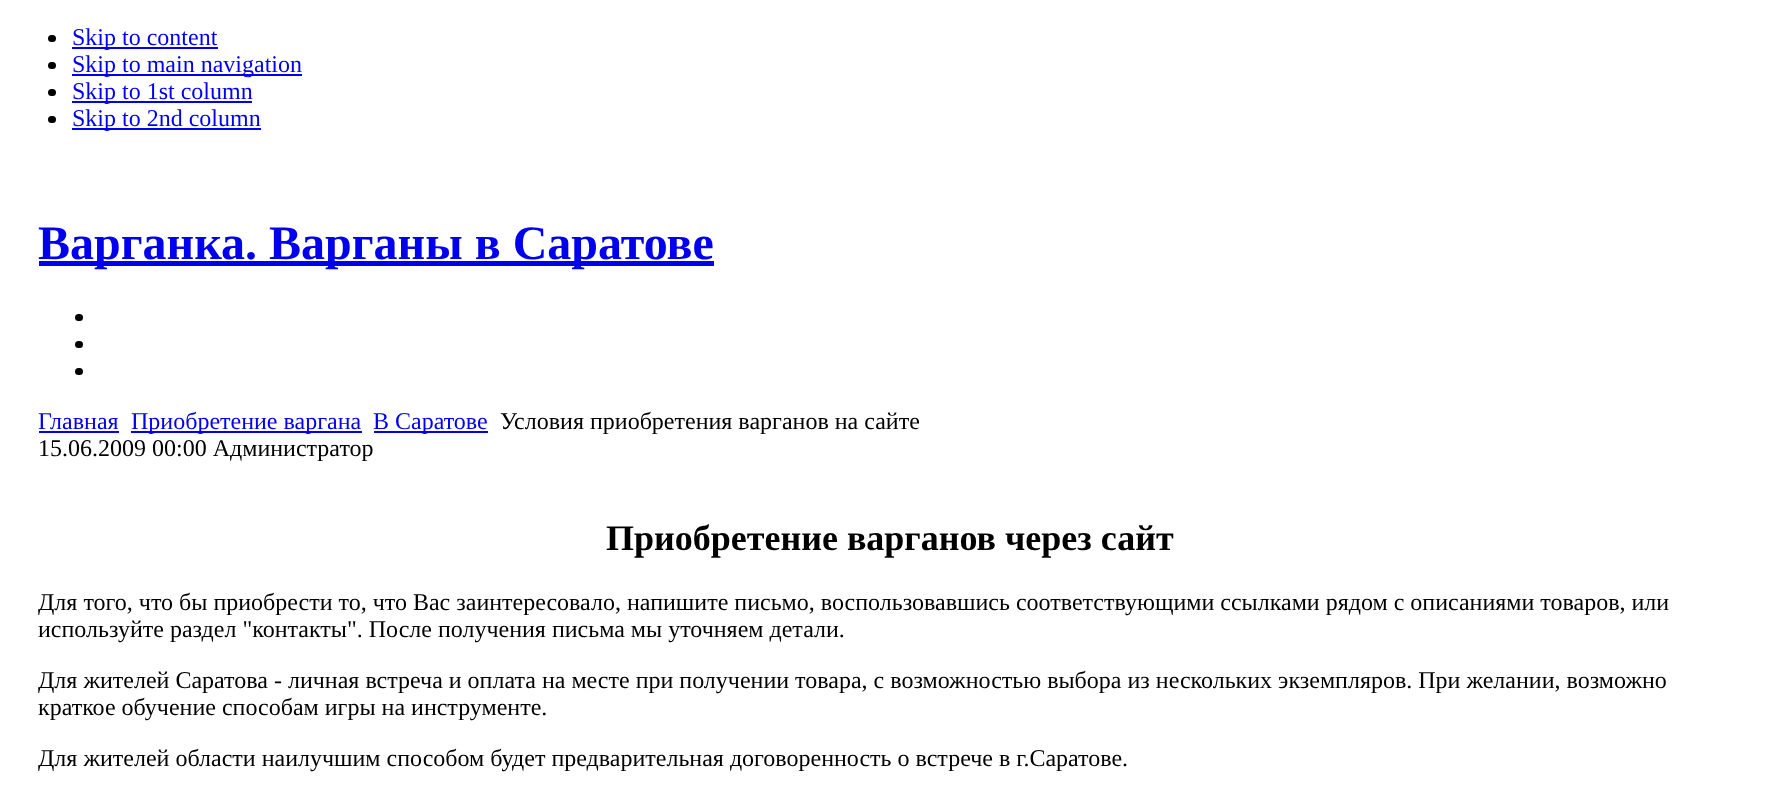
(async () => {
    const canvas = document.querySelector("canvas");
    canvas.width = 1778;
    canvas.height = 810;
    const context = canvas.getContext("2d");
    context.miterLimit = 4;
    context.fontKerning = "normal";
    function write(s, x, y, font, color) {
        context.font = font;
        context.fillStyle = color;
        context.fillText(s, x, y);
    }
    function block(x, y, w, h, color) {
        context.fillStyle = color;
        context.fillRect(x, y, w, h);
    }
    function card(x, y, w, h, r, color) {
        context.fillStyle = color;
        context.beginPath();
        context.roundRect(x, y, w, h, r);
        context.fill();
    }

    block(0, 0, 1778, 810, "rgb(255, 255, 255)");
    card(48, 35, 8, 7, 3.5, "rgb(0, 0, 0)");
    block(72, 47, 146, 2, "rgb(0, 0, 238)");
    write("Skip to content", 72, 45, "24px Liberation Serif", "rgb(0, 0, 238)");
    card(48, 62, 8, 7, 3.5, "rgb(0, 0, 0)");
    block(72, 74, 230, 2, "rgb(0, 0, 238)");
    write("Skip to main navigation", 72, 72, "24px Liberation Serif", "rgb(0, 0, 238)");
    card(48, 89, 8, 7, 3.5, "rgb(0, 0, 0)");
    block(72, 101, 180, 2, "rgb(0, 0, 238)");
    write("Skip to 1st column", 72, 99, "24px Liberation Serif", "rgb(0, 0, 238)");
    card(48, 116, 8, 7, 3.5, "rgb(0, 0, 0)");
    block(72, 128, 189, 2, "rgb(0, 0, 238)");
    write("Skip to 2nd column", 72, 126, "24px Liberation Serif", "rgb(0, 0, 238)");
    block(39, 261, 675, 5, "rgb(0, 0, 238)");
    write("Варганка. Варганы в Саратове", 38, 259, "bold 48px Liberation Serif", "rgb(0, 0, 238)");
    card(75, 314, 8, 7, 3.5, "rgb(0, 0, 0)");
    card(75, 341, 8, 7, 3.5, "rgb(0, 0, 0)");
    card(75, 368, 8, 7, 3.5, "rgb(0, 0, 0)");
    write("Главная", 38, 429, "24px Liberation Serif", "rgb(0, 0, 238)");
    block(39, 431, 80, 2, "rgb(0, 0, 238)");
    block(131, 431, 231, 2, "rgb(0, 0, 238)");
    write("Приобретение варгана", 131, 429, "24px Liberation Serif", "rgb(0, 0, 238)");
    block(374, 431, 114, 2, "rgb(0, 0, 238)");
    write("В Саратове", 373, 429, "24px Liberation Serif", "rgb(0, 0, 238)");
    write("Условия приобретения варганов на сайте", 500, 429, "24px Liberation Serif", "rgb(0, 0, 0)");
    write("15.06.2009 00:00 Администратор", 38, 456, "24px Liberation Serif", "rgb(0, 0, 0)");
    write("Приобретение варганов через сайт", 606, 550, "bold 36px Liberation Serif", "rgb(0, 0, 0)");
    write("Для того, что бы приобрести то, что Вас заинтересовало, напишите письмо, воспользовавшись соответствующими ссылками рядом с описаниями товаров, или", 38, 610, "24px Liberation Serif", "rgb(0, 0, 0)");
    write("используйте раздел \"контакты\". После получения письма мы уточняем детали.", 38, 637, "24px Liberation Serif", "rgb(0, 0, 0)");
    write("Для жителей Саратова - личная встреча и оплата на месте при получении товара, с возможностью выбора из нескольких экземпляров. При желании, возможно", 38, 688, "24px Liberation Serif", "rgb(0, 0, 0)");
    write("краткое обучение способам игры на инструменте.", 38, 715, "24px Liberation Serif", "rgb(0, 0, 0)");
    write("Для жителей области наилучшим способом будет предварительная договоренность о встрече в г.Саратове.", 38, 766, "24px Liberation Serif", "rgb(0, 0, 0)");
})();
